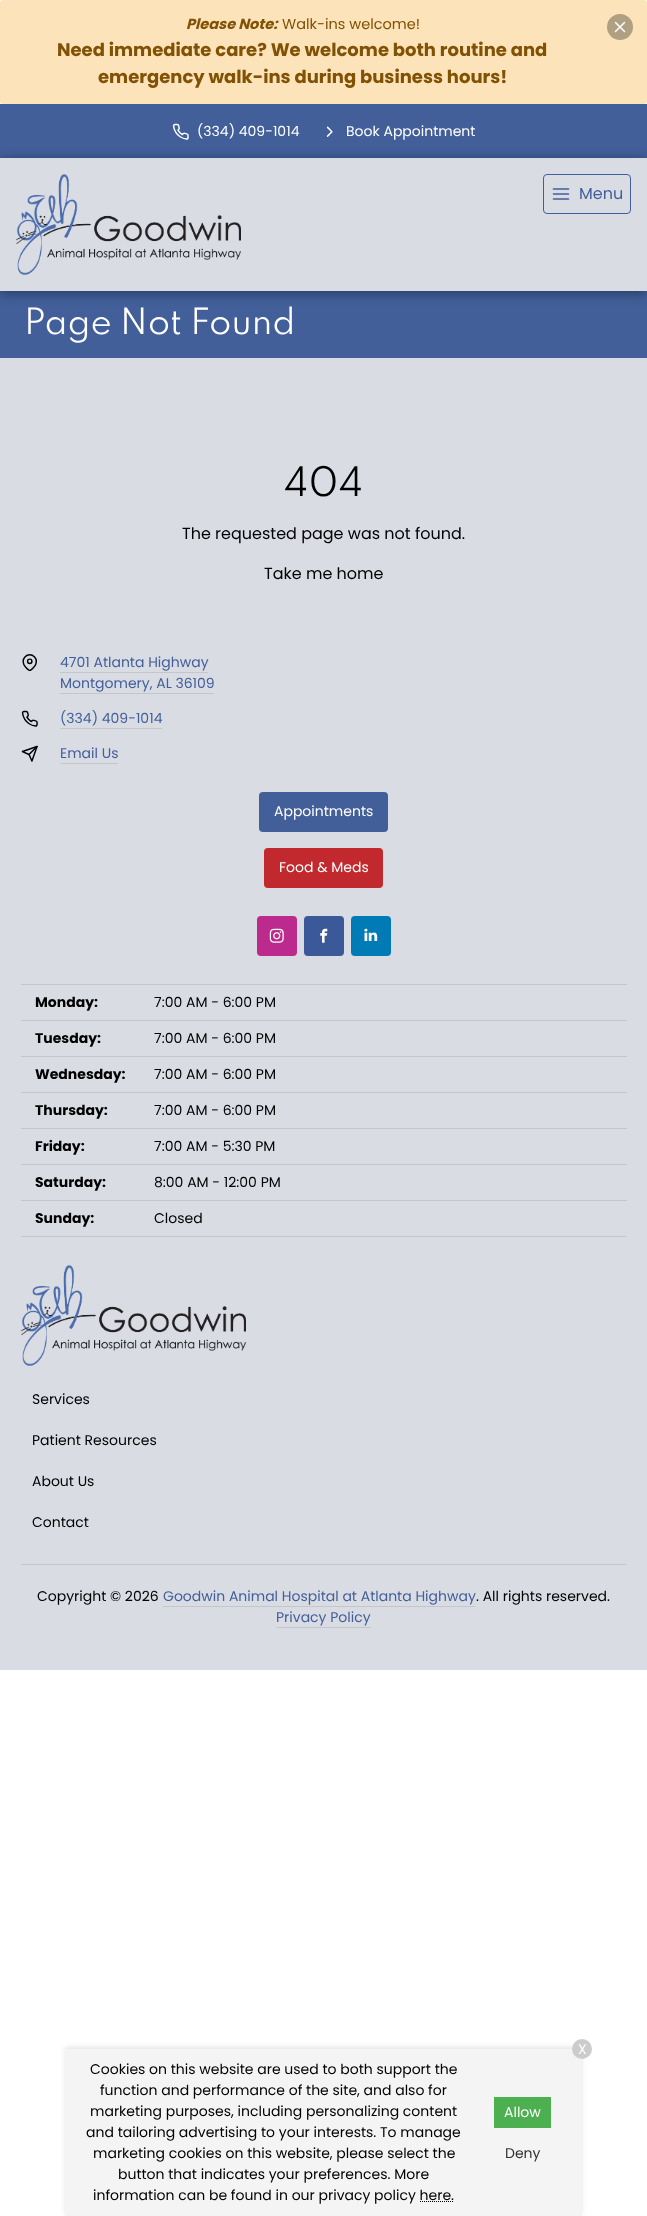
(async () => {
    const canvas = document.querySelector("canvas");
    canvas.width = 647;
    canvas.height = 2216;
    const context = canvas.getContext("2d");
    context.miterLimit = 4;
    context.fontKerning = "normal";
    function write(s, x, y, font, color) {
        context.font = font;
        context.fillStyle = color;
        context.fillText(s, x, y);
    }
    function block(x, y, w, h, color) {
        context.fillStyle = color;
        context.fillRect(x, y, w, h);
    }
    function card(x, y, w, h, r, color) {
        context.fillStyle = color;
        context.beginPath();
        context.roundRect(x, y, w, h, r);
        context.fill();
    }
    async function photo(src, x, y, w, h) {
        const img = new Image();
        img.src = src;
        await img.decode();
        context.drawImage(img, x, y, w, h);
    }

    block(0, 0, 647, 2216, "rgb(255, 255, 255)");
    card(0, 0, 647, 104, 3, "rgb(253, 227, 186)");
    write("Please Note:", 186, 29, "italic bold 14.5px Poppins", "rgb(129, 81, 4)");
    write("Walk-ins welcome!", 282, 29, "14.5px Poppins", "rgb(129, 81, 4)");
    write("Need immediate care? We welcome both routine and", 57, 56, "bold 18px Poppins", "rgb(129, 81, 4)");
    write("emergency walk-ins during business hours!", 98, 83, "bold 18px Poppins", "rgb(129, 81, 4)");
    context.fillStyle = "rgb(177, 159, 130)";
    context.beginPath();
    context.arc(620, 27, 13, 0, Math.PI * 2);
    context.fill();
    await photo("media/1.png", 614, 21, 12, 12);
    block(0, 104, 647, 54, "rgb(66, 95, 154)");
    await photo("media/2.png", 172, 123, 17, 17);
    write("(334) 409-1014", 197, 136, "14px Poppins", "rgb(255, 255, 255)");
    await photo("media/3.png", 326, 126, 7, 11);
    write("Book Appointment", 346, 136, "14px Poppins", "rgb(255, 255, 255)");
    block(0, 291, 647, 67, "rgb(66, 95, 154)");
    context.fillStyle = "rgba(0, 0, 0, 0.4)";
    context.filter = "blur(6px)";
    context.beginPath();
    context.rect(0, 160, 647, 133);
    context.fill();
    context.filter = "none";
    block(0, 158, 647, 133, "rgb(217, 220, 227)");
    await photo("media/4.png", 16, 174, 225, 101);
    context.beginPath();
    context.roundRect(543.5, 174.5, 87, 39, 3.5);
    context.strokeStyle = "rgb(66, 95, 154)";
    context.stroke();
    await photo("media/5.png", 552, 188, 18, 12);
    write("Menu", 579, 199, "16px Poppins", "rgb(66, 95, 154)");
    write("Page Not Found", 24, 334, "32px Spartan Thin", "rgb(255, 255, 255)");
    block(0, 358, 647, 1312, "rgb(217, 220, 227)");
    write("404", 284, 496, "36px Spartan Thin", "rgb(0, 0, 0)");
    write("The requested page was not found.", 182, 539, "16px Poppins", "rgb(0, 0, 0)");
    write("Take me home", 264, 579, "16px Poppins", "rgb(0, 0, 0)");
    await photo("media/6.png", 22, 654, 15, 17);
    write("4701 Atlanta Highway", 60, 667, "14px Poppins", "rgb(66, 95, 154)");
    block(60, 672, 148, 1, "rgb(195, 198, 204)");
    write("Montgomery, AL 36109", 60, 688, "14px Poppins", "rgb(66, 95, 154)");
    block(60, 693, 154, 1, "rgb(195, 198, 204)");
    await photo("media/7.png", 21, 710, 17, 17);
    write("(334) 409-1014", 60, 723, "14px Poppins", "rgb(66, 95, 154)");
    block(60, 728, 102, 1, "rgb(195, 198, 204)");
    await photo("media/8.png", 21, 745, 17, 17);
    write("Email Us", 60, 758, "14px Poppins", "rgb(66, 95, 154)");
    block(60, 763, 58, 1, "rgb(195, 198, 204)");
    card(259, 792, 129, 40, 4, "rgb(66, 95, 154)");
    write("Appointments", 274, 816, "14px Poppins", "rgb(255, 255, 255)");
    card(264, 848, 119, 40, 4, "rgb(194, 41, 46)");
    write("Food & Meds", 279, 872, "14px Poppins", "rgb(255, 255, 255)");
    card(257, 916, 40, 40, 4, "rgb(188, 42, 141)");
    await photo("media/9.png", 269, 928, 15, 15);
    card(304, 916, 40, 40, 4, "rgb(59, 89, 152)");
    await photo("media/10.png", 320, 928, 8, 15);
    card(351, 916, 40, 40, 4, "rgb(0, 123, 182)");
    await photo("media/11.png", 364, 928, 14, 13);
    block(21, 1236, 605, 1, "rgb(195, 198, 204)");
    block(21, 984, 606, 1, "rgb(195, 198, 204)");
    write("Monday:", 35, 1007, "bold 14px Poppins", "rgb(0, 0, 0)");
    write("7:00 AM - 6:00 PM", 154, 1007, "14px Poppins", "rgb(0, 0, 0)");
    block(21, 1020, 606, 1, "rgb(195, 198, 204)");
    write("Tuesday:", 35, 1043, "bold 14px Poppins", "rgb(0, 0, 0)");
    write("7:00 AM - 6:00 PM", 154, 1043, "14px Poppins", "rgb(0, 0, 0)");
    block(21, 1056, 606, 1, "rgb(195, 198, 204)");
    write("Wednesday:", 35, 1079, "bold 14px Poppins", "rgb(0, 0, 0)");
    write("7:00 AM - 6:00 PM", 154, 1079, "14px Poppins", "rgb(0, 0, 0)");
    block(21, 1092, 606, 1, "rgb(195, 198, 204)");
    write("Thursday:", 35, 1115, "bold 14px Poppins", "rgb(0, 0, 0)");
    write("7:00 AM - 6:00 PM", 154, 1115, "14px Poppins", "rgb(0, 0, 0)");
    block(21, 1128, 606, 1, "rgb(195, 198, 204)");
    write("Friday:", 35, 1151, "bold 14px Poppins", "rgb(0, 0, 0)");
    write("7:00 AM - 5:30 PM", 154, 1151, "14px Poppins", "rgb(0, 0, 0)");
    block(21, 1164, 606, 1, "rgb(195, 198, 204)");
    write("Saturday:", 35, 1187, "bold 14px Poppins", "rgb(0, 0, 0)");
    write("8:00 AM - 12:00 PM", 154, 1187, "14px Poppins", "rgb(0, 0, 0)");
    block(21, 1200, 606, 1, "rgb(195, 198, 204)");
    write("Sunday:", 35, 1223, "bold 14px Poppins", "rgb(0, 0, 0)");
    write("Closed", 154, 1223, "14px Poppins", "rgb(0, 0, 0)");
    await photo("media/4.png", 21, 1265, 225, 101);
    write("Services", 32, 1404, "14px Poppins", "rgb(0, 0, 0)");
    write("Patient Resources", 32, 1445, "14px Poppins", "rgb(0, 0, 0)");
    write("About Us", 32, 1486, "14px Poppins", "rgb(0, 0, 0)");
    write("Contact", 32, 1527, "14px Poppins", "rgb(0, 0, 0)");
    block(21, 1564, 605, 1, "rgb(195, 198, 204)");
    write("Copyright © 2026", 37, 1601, "14px Poppins", "rgb(0, 0, 0)");
    write("Goodwin Animal Hospital at Atlanta Highway", 163, 1601, "14px Poppins", "rgb(66, 95, 154)");
    block(163, 1606, 313, 1, "rgb(195, 198, 204)");
    write(". All rights reserved.", 476, 1601, "14px Poppins", "rgb(0, 0, 0)");
    write("Privacy Policy", 276, 1622, "14px Poppins", "rgb(66, 95, 154)");
    block(276, 1627, 95, 1, "rgb(195, 198, 204)");
    context.fillStyle = "rgba(0, 0, 0, 0.1)";
    context.filter = "blur(2.5px)";
    context.beginPath();
    context.rect(65, 2047, 517, 167);
    context.fill();
    context.filter = "none";
    block(65, 2049, 517, 167, "rgb(244, 244, 244)");
    context.fillStyle = "rgb(204, 204, 204)";
    context.beginPath();
    context.arc(582, 2049, 10, 0, Math.PI * 2);
    context.fill();
    write("X", 578, 2054, "14px Poppins", "rgb(255, 255, 255)");
    write("Cookies on this website are used to both support the", 90, 2074, "14px Poppins", "rgb(0, 0, 0)");
    write("function and performance of the site, and also for", 100, 2095, "14px Poppins", "rgb(0, 0, 0)");
    write("marketing purposes, including personalizing content", 90, 2116, "14px Poppins", "rgb(0, 0, 0)");
    write("and tailoring advertising to your interests. To manage", 86, 2137, "14px Poppins", "rgb(0, 0, 0)");
    write("marketing cookies on this website, please select the", 93, 2158, "14px Poppins", "rgb(0, 0, 0)");
    write("button that indicates your preferences. More", 118, 2179, "14px Poppins", "rgb(0, 0, 0)");
    write("information can be found in our privacy policy here.", 93, 2200, "14px Poppins", "rgb(0, 0, 0)");
    context.beginPath();
    context.moveTo(420, 2201.5);
    context.lineTo(454, 2201.5);
    context.strokeStyle = "rgb(0, 0, 0)";
    context.setLineDash([1, 1]);
    context.stroke();
    block(494, 2097, 57, 31, "rgb(76, 175, 80)");
    write("Allow", 504, 2117, "14px Poppins", "rgb(255, 255, 255)");
    write("Deny", 505, 2158, "14px Poppins", "rgb(51, 51, 51)");
})();
